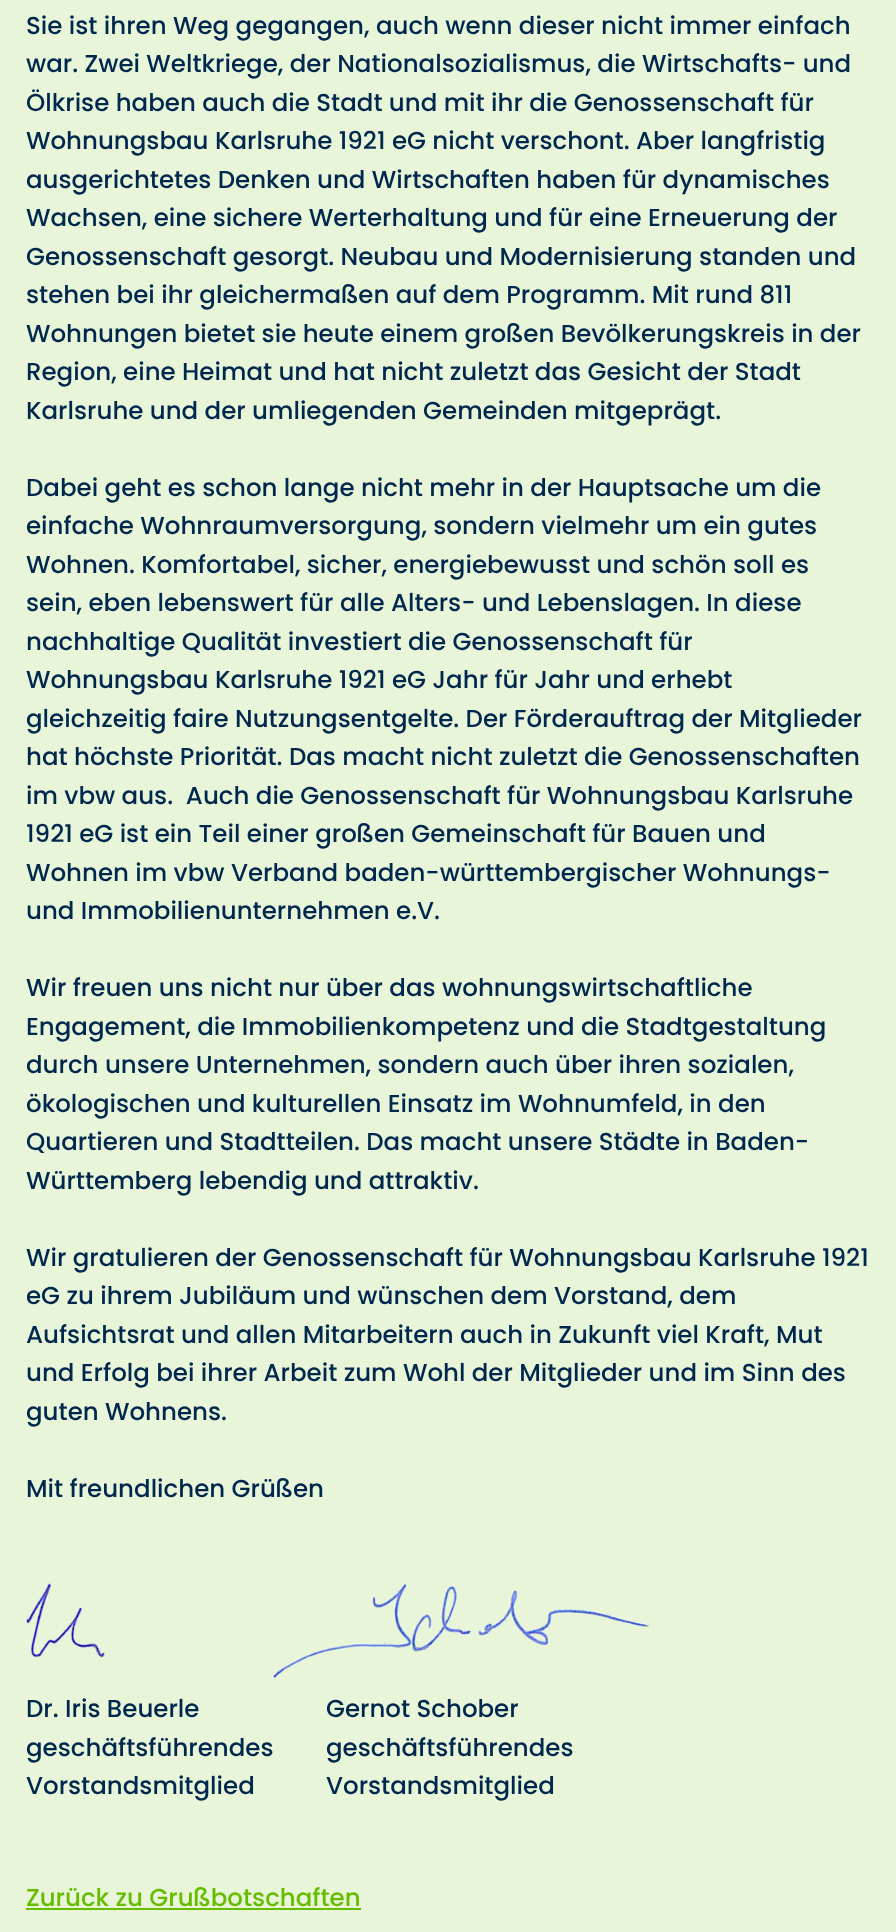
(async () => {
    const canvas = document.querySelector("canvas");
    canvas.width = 896;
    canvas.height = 1932;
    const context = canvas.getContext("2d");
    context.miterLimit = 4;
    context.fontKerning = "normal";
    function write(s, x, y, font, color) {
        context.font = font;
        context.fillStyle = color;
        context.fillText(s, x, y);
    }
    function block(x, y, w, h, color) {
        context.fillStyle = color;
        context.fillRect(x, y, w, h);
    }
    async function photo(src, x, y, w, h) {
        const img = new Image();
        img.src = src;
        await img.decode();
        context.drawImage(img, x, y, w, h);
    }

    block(0, 0, 896, 1932, "rgb(232, 245, 217)");
    write("Sie ist ihren Weg gegangen, auch wenn dieser nicht immer einfach", 26, 34, "500 24.5px Poppins", "rgb(0, 40, 78)");
    write("war. Zwei Weltkriege, der Nationalsozialismus, die Wirtschafts- und", 26, 72, "500 24.5px Poppins", "rgb(0, 40, 78)");
    write("Ölkrise haben auch die Stadt und mit ihr die Genossenschaft für", 26, 111, "500 24.5px Poppins", "rgb(0, 40, 78)");
    write("Wohnungsbau Karlsruhe 1921 eG nicht verschont. Aber langfristig", 26, 149, "500 24.5px Poppins", "rgb(0, 40, 78)");
    write("ausgerichtetes Denken und Wirtschaften haben für dynamisches", 26, 188, "500 24.5px Poppins", "rgb(0, 40, 78)");
    write("Wachsen, eine sichere Werterhaltung und für eine Erneuerung der", 26, 226, "500 24.5px Poppins", "rgb(0, 40, 78)");
    write("Genossenschaft gesorgt. Neubau und Modernisierung standen und", 26, 265, "500 24.5px Poppins", "rgb(0, 40, 78)");
    write("stehen bei ihr gleichermaßen auf dem Programm. Mit rund 811", 26, 303, "500 24.5px Poppins", "rgb(0, 40, 78)");
    write("Wohnungen bietet sie heute einem großen Bevölkerungskreis in der", 26, 342, "500 24.5px Poppins", "rgb(0, 40, 78)");
    write("Region, eine Heimat und hat nicht zuletzt das Gesicht der Stadt", 26, 380, "500 24.5px Poppins", "rgb(0, 40, 78)");
    write("Karlsruhe und der umliegenden Gemeinden mitgeprägt.", 26, 419, "500 24.5px Poppins", "rgb(0, 40, 78)");
    write("Dabei geht es schon lange nicht mehr in der Hauptsache um die", 26, 496, "500 24.5px Poppins", "rgb(0, 40, 78)");
    write("einfache Wohnraumversorgung, sondern vielmehr um ein gutes", 26, 534, "500 24.5px Poppins", "rgb(0, 40, 78)");
    write("Wohnen. Komfortabel, sicher, energiebewusst und schön soll es", 26, 573, "500 24.5px Poppins", "rgb(0, 40, 78)");
    write("sein, eben lebenswert für alle Alters- und Lebenslagen. In diese", 26, 611, "500 24.5px Poppins", "rgb(0, 40, 78)");
    write("nachhaltige Qualität investiert die Genossenschaft für", 26, 650, "500 24.5px Poppins", "rgb(0, 40, 78)");
    write("Wohnungsbau Karlsruhe 1921 eG Jahr für Jahr und erhebt", 26, 688, "500 24.5px Poppins", "rgb(0, 40, 78)");
    write("gleichzeitig faire Nutzungsentgelte. Der Förderauftrag der Mitglieder", 26, 727, "500 24.5px Poppins", "rgb(0, 40, 78)");
    write("hat höchste Priorität. Das macht nicht zuletzt die Genossenschaften", 26, 765, "500 24.5px Poppins", "rgb(0, 40, 78)");
    write("im vbw aus.  Auch die Genossenschaft für Wohnungsbau Karlsruhe", 26, 804, "500 24.5px Poppins", "rgb(0, 40, 78)");
    write("1921 eG ist ein Teil einer großen Gemeinschaft für Bauen und", 26, 842, "500 24.5px Poppins", "rgb(0, 40, 78)");
    write("Wohnen im vbw Verband baden-württembergischer Wohnungs-", 26, 881, "500 24.5px Poppins", "rgb(0, 40, 78)");
    write("und Immobilienunternehmen e.V.", 26, 919, "500 24.5px Poppins", "rgb(0, 40, 78)");
    write("Wir freuen uns nicht nur über das wohnungswirtschaftliche", 26, 996, "500 24.5px Poppins", "rgb(0, 40, 78)");
    write("Engagement, die Immobilienkompetenz und die Stadtgestaltung", 26, 1035, "500 24.5px Poppins", "rgb(0, 40, 78)");
    write("durch unsere Unternehmen, sondern auch über ihren sozialen,", 26, 1073, "500 24.5px Poppins", "rgb(0, 40, 78)");
    write("ökologischen und kulturellen Einsatz im Wohnumfeld, in den", 26, 1112, "500 24.5px Poppins", "rgb(0, 40, 78)");
    write("Quartieren und Stadtteilen. Das macht unsere Städte in Baden-", 26, 1150, "500 24.5px Poppins", "rgb(0, 40, 78)");
    write("Württemberg lebendig und attraktiv.", 26, 1189, "500 24.5px Poppins", "rgb(0, 40, 78)");
    write("Wir gratulieren der Genossenschaft für Wohnungsbau Karlsruhe 1921", 26, 1266, "500 24.5px Poppins", "rgb(0, 40, 78)");
    write("eG zu ihrem Jubiläum und wünschen dem Vorstand, dem", 26, 1304, "500 24.5px Poppins", "rgb(0, 40, 78)");
    write("Aufsichtsrat und allen Mitarbeitern auch in Zukunft viel Kraft, Mut", 26, 1343, "500 24.5px Poppins", "rgb(0, 40, 78)");
    write("und Erfolg bei ihrer Arbeit zum Wohl der Mitglieder und im Sinn des", 26, 1381, "500 24.5px Poppins", "rgb(0, 40, 78)");
    write("guten Wohnens.", 26, 1420, "500 24.5px Poppins", "rgb(0, 40, 78)");
    write("Mit freundlichen Grüßen", 26, 1497, "500 24.5px Poppins", "rgb(0, 40, 78)");
    await photo("media/1.png", 26, 1583, 79, 75);
    await photo("media/2.png", 273, 1583, 376, 96);
    write("Dr. Iris Beuerle", 26, 1717, "500 24.5px Poppins", "rgb(0, 40, 78)");
    write("geschäftsführendes", 26, 1756, "500 24.5px Poppins", "rgb(0, 40, 78)");
    write("Vorstandsmitglied", 26, 1794, "500 24.5px Poppins", "rgb(0, 40, 78)");
    write("Gernot Schober", 326, 1717, "500 24.5px Poppins", "rgb(0, 40, 78)");
    write("geschäftsführendes", 326, 1756, "500 24.5px Poppins", "rgb(0, 40, 78)");
    write("Vorstandsmitglied", 326, 1794, "500 24.5px Poppins", "rgb(0, 40, 78)");
    write("Zurück zu Grußbotschaften", 26, 1906, "500 24.5px Poppins", "rgb(102, 189, 0)");
    block(26, 1908, 335, 2, "rgb(102, 189, 0)");
})();
